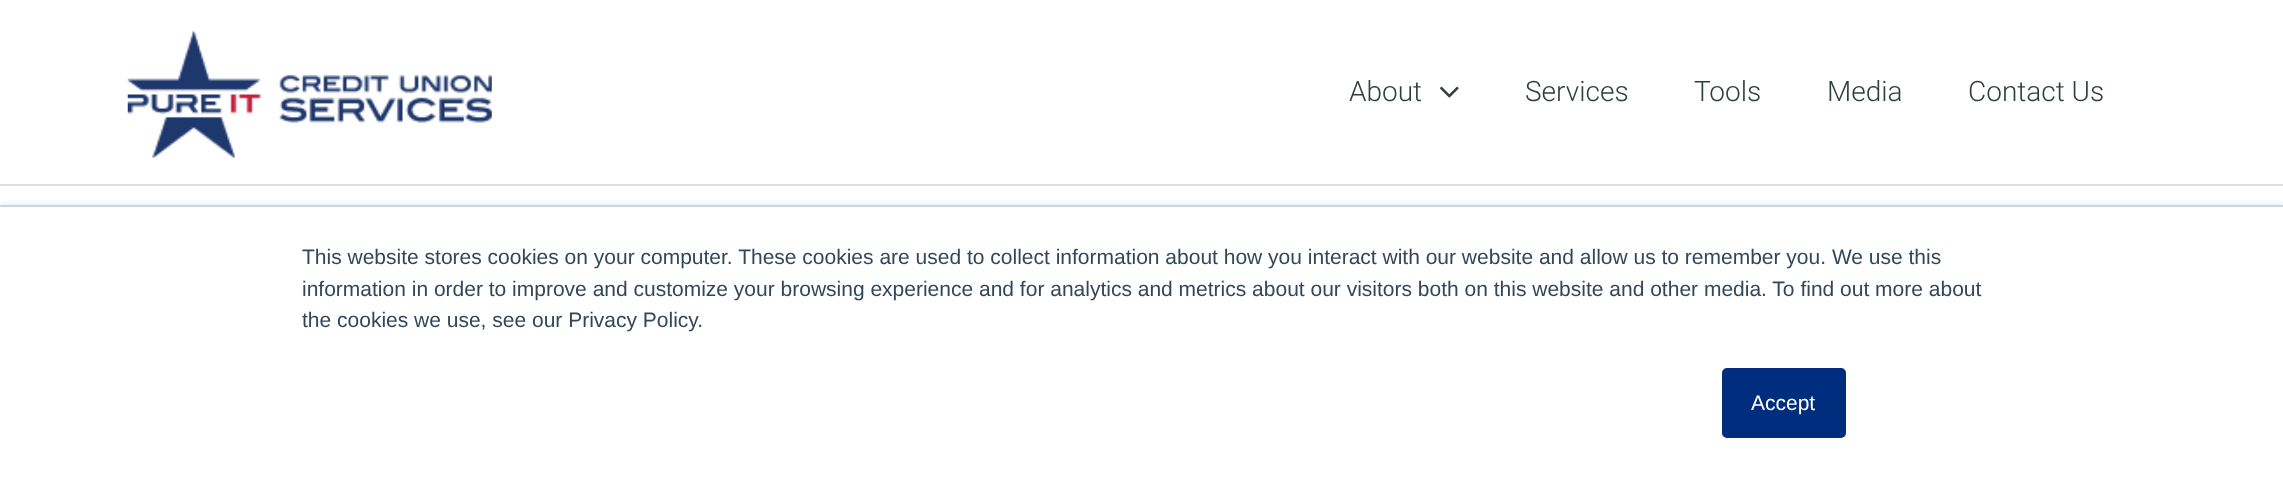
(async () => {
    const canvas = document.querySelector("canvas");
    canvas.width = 2283;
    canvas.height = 483;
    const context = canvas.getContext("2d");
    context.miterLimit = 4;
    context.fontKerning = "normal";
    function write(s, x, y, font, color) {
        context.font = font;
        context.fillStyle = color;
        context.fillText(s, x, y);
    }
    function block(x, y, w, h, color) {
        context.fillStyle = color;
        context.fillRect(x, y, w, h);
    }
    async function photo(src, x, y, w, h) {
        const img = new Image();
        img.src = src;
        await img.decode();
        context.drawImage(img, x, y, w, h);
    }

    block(0, 0, 2283, 483, "rgb(255, 255, 255)");
    block(0, 184, 2283, 2, "rgb(220, 225, 229)");
    await photo("media/1.png", 127, 31, 365, 127);
    write("About", 1349, 101, "300 28px Roboto", "rgb(52, 61, 61)");
    await photo("media/2.png", 1440, 86, 19, 12);
    write("Services", 1525, 101, "300 28px Roboto", "rgb(52, 61, 61)");
    write("Tools", 1694, 101, "300 28px Roboto", "rgb(52, 61, 61)");
    write("Media", 1827, 101, "300 28px Roboto", "rgb(52, 61, 61)");
    write("Contact Us", 1968, 101, "300 28px Roboto", "rgb(52, 61, 61)");
    context.fillStyle = "rgb(234, 240, 246)";
    context.filter = "blur(2.5px)";
    context.beginPath();
    context.rect(0, 203, 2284, 278);
    context.fill();
    context.filter = "none";
    block(0, 207, 2283, 276, "rgb(255, 255, 255)");
    block(0, 205, 2283, 2, "rgb(203, 214, 226)");
    write("This website stores cookies on your computer. These cookies are used to collect information about how you interact with our website and allow us to remember you. We use this", 302, 264, "21px Liberation Sans", "rgb(51, 71, 91)");
    write("information in order to improve and customize your browsing experience and for analytics and metrics about our visitors both on this website and other media. To find out more about", 302, 296, "21px Liberation Sans", "rgb(51, 71, 91)");
    write("the cookies we use, see our Privacy Policy.", 302, 327, "21px Liberation Sans", "rgb(51, 71, 91)");
    context.fillStyle = "rgb(0, 45, 125)";
    context.beginPath();
    context.roundRect(1723, 369, 122, 68, 4);
    context.fill();
    context.strokeStyle = "rgb(0, 45, 125)";
    context.lineWidth = 2;
    context.stroke();
    write("Accept", 1751, 410, "21px Liberation Sans", "rgb(255, 255, 255)");
})();
